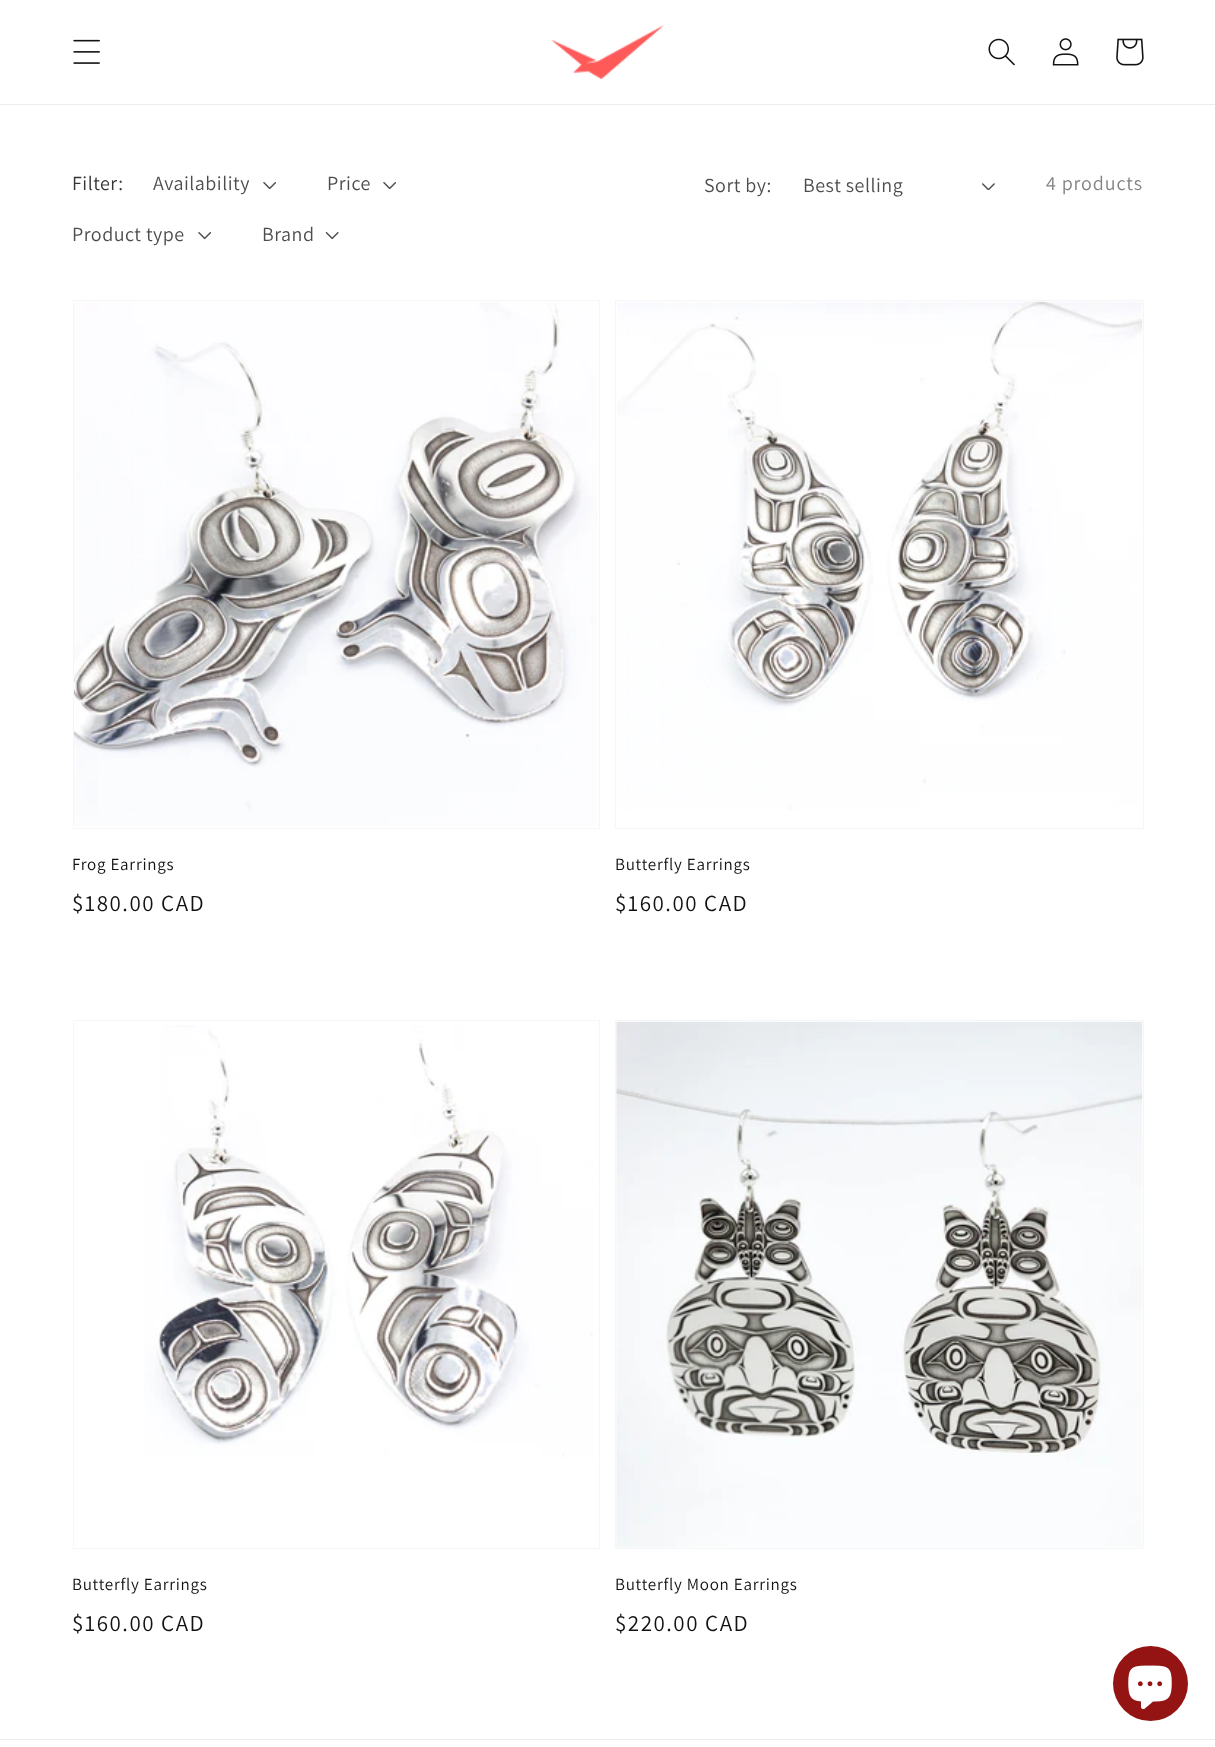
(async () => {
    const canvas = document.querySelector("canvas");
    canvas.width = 1215;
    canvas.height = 1747;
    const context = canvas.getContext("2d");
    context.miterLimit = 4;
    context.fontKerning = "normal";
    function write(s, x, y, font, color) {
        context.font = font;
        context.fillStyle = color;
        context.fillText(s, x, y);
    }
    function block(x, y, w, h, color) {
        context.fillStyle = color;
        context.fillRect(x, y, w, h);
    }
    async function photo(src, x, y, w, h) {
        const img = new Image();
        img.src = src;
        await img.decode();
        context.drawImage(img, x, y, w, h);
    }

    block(0, 0, 1215, 1747, "rgb(255, 255, 255)");
    block(0, 104, 1215, 1, "rgb(236, 236, 236)");
    await photo("media/1.png", 73, 39, 27, 25);
    await photo("media/2.png", 551, 25, 113, 55);
    await photo("media/3.png", 988, 38, 27, 28);
    await photo("media/4.png", 1052, 38, 27, 28);
    await photo("media/5.png", 1116, 38, 28, 28);
    context.letterSpacing = "0.5px";
    write("Filter:", 72, 190, "20px Assistant", "rgb(54, 54, 54)");
    write("Availability", 153, 190, "20px Assistant", "rgb(77, 77, 77)");
    await photo("media/6.png", 263, 182, 13, 7);
    write("Price", 327, 190, "20px Assistant", "rgb(77, 77, 77)");
    await photo("media/6.png", 383, 182, 13, 7);
    write("Product type", 72, 241, "20px Assistant", "rgb(77, 77, 77)");
    await photo("media/7.png", 198, 232, 13, 8);
    write("Brand", 262, 241, "20px Assistant", "rgb(77, 77, 77)");
    await photo("media/8.png", 325, 232, 14, 8);
    write("Sort by:", 704, 192, "20px Assistant", "rgb(77, 77, 77)");
    write("Best selling", 803, 192, "20px Assistant", "rgb(77, 77, 77)");
    await photo("media/9.png", 982, 183, 13, 7);
    context.letterSpacing = "0.9px";
    write("4 products", 1046, 190, "20px Assistant", "rgb(131, 131, 131)");
    context.strokeStyle = "rgb(246, 246, 246)";
    context.strokeRect(73.5, 300.5, 526, 528);
    await photo("media/10.png", 73, 302, 525, 525);
    context.letterSpacing = "0.75px";
    write("Frog Earrings", 72, 870, "17px Assistant", "rgb(18, 18, 18)");
    context.letterSpacing = "1.5px";
    write("$180.00 CAD", 72, 911, "23px Assistant", "rgb(18, 18, 18)");
    context.strokeRect(615.5, 300.5, 528, 528);
    await photo("media/11.png", 617, 301, 526, 509);
    context.letterSpacing = "0.75px";
    write("Butterfly Earrings", 615, 870, "17px Assistant", "rgb(18, 18, 18)");
    context.letterSpacing = "1.5px";
    write("$160.00 CAD", 615, 911, "23px Assistant", "rgb(18, 18, 18)");
    context.strokeRect(73.5, 1020.5, 526, 528);
    await photo("media/12.png", 144, 1025, 449, 432);
    context.letterSpacing = "0.75px";
    write("Butterfly Earrings", 72, 1590, "17px Assistant", "rgb(18, 18, 18)");
    context.letterSpacing = "1.5px";
    write("$160.00 CAD", 72, 1631, "23px Assistant", "rgb(18, 18, 18)");
    context.strokeRect(615.5, 1020.5, 528, 528);
    await photo("media/13.png", 616, 1021, 527, 527);
    context.letterSpacing = "0.75px";
    write("Butterfly Moon Earrings", 615, 1590, "17px Assistant", "rgb(18, 18, 18)");
    context.letterSpacing = "1.5px";
    write("$220.00 CAD", 615, 1631, "23px Assistant", "rgb(18, 18, 18)");
    context.fillStyle = "rgb(148, 20, 20)";
    context.beginPath();
    context.arc(1150.5, 1683.5, 37.5, 0, Math.PI * 2);
    context.fill();
    await photo("media/14.png", 1128, 1665, 44, 45);
    block(0, 1739, 1215, 1, "rgb(236, 236, 236)");
})();
